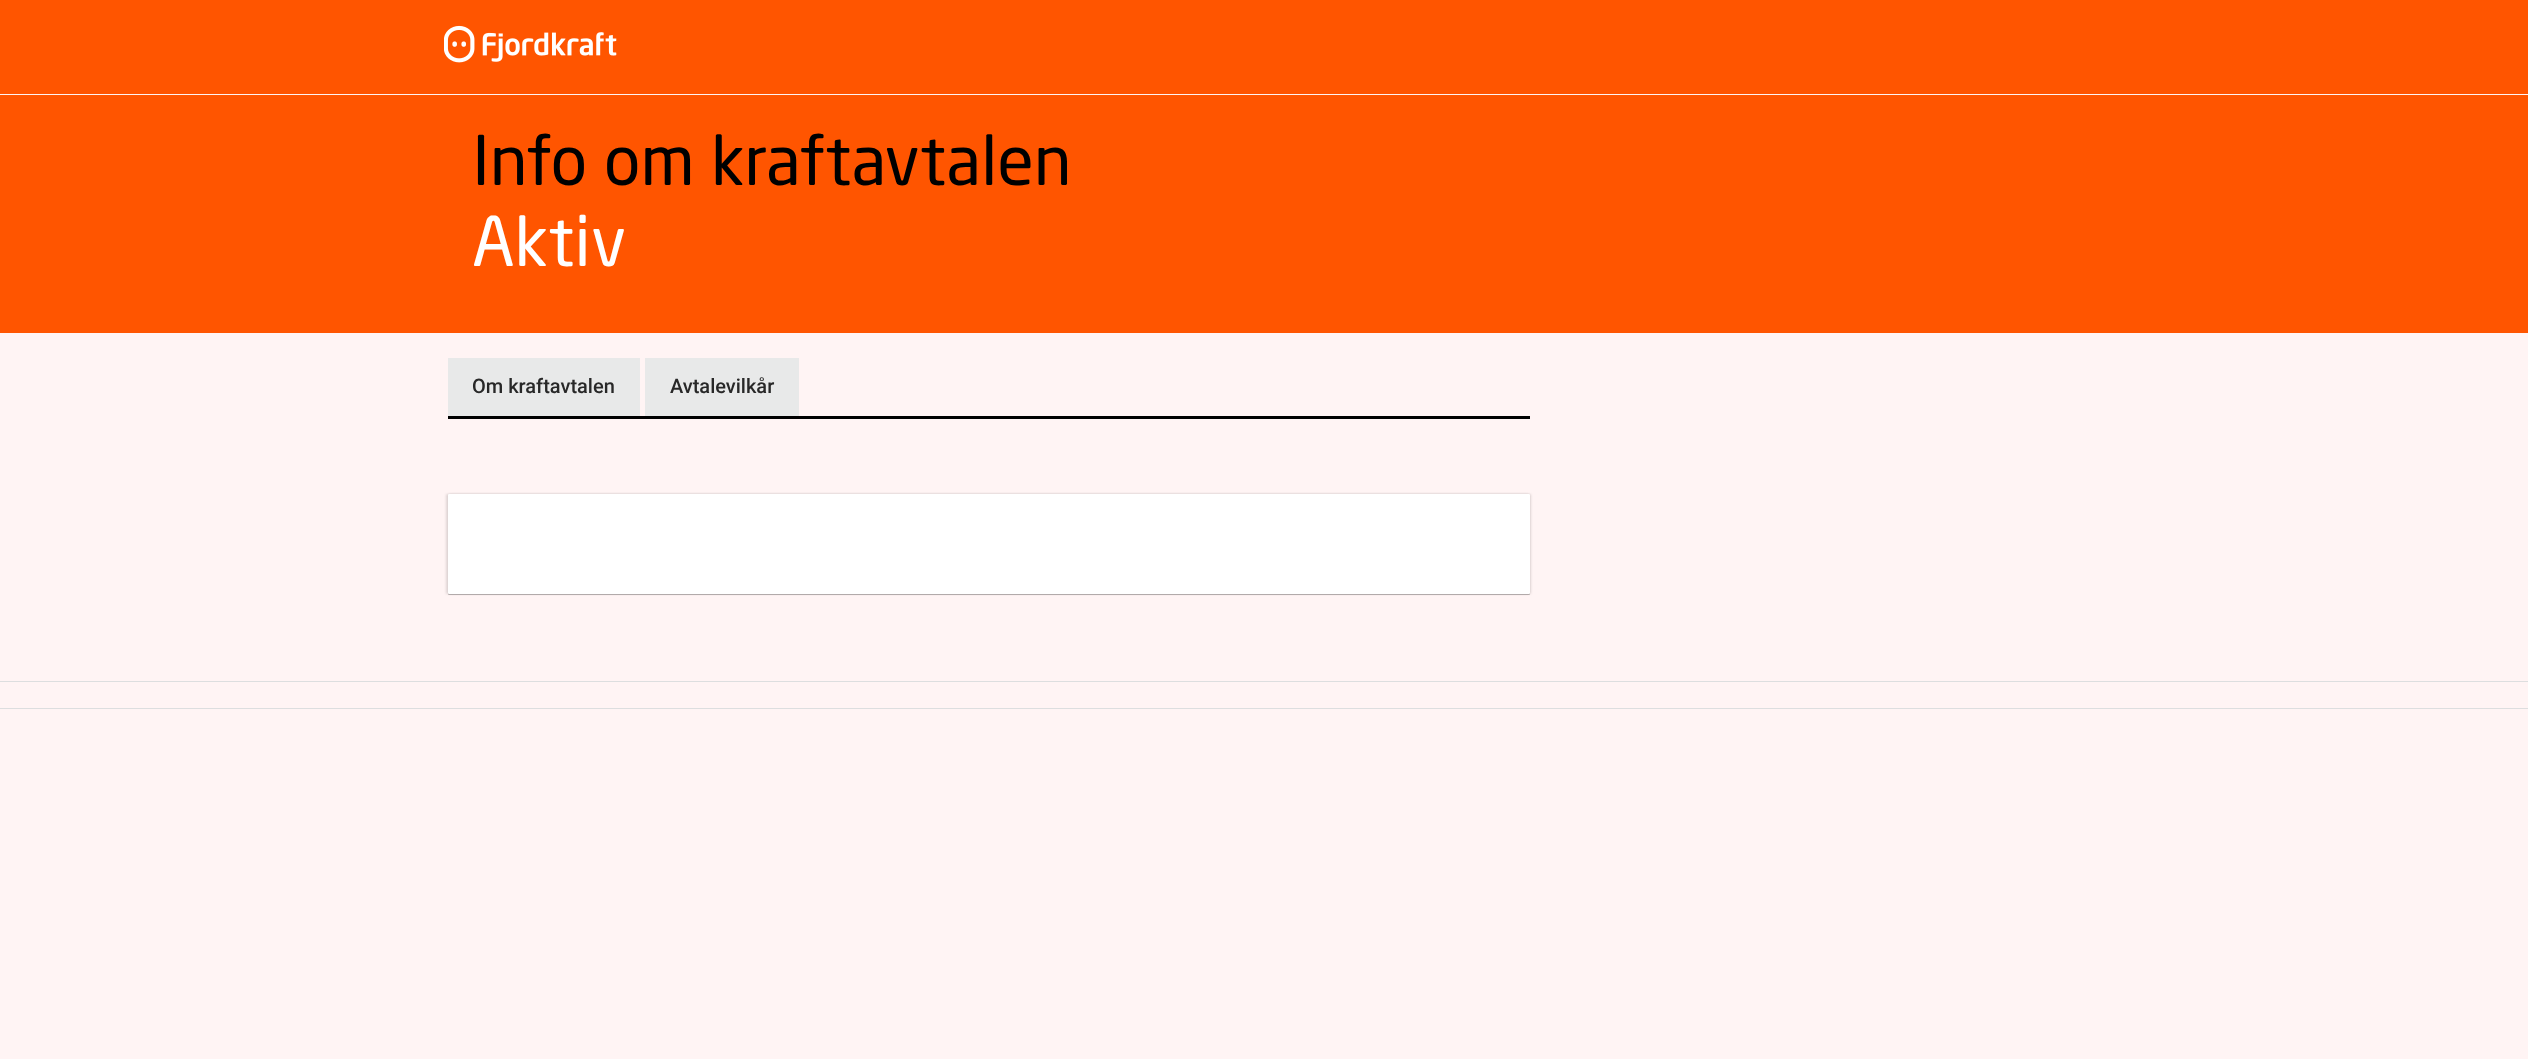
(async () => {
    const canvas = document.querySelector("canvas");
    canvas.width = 2528;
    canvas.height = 1059;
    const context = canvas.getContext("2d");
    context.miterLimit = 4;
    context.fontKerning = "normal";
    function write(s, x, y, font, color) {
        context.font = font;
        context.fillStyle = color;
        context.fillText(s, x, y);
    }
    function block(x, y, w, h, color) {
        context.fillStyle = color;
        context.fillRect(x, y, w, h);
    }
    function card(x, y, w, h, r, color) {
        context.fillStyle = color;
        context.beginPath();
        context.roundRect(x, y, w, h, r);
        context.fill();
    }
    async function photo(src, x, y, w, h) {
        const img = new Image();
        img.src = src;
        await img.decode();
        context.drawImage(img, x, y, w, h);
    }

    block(0, 0, 2528, 1059, "rgb(255, 244, 244)");
    block(0, 0, 2528, 333, "rgb(255, 85, 0)");
    await photo("media/1.png", 444, 25, 173, 38);
    block(0, 94, 2528, 1, "rgb(255, 244, 244)");
    write("Info om kraftavtalen", 472, 185, "67.5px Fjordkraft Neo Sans", "rgb(0, 0, 0)");
    write("Aktiv", 472, 266, "67.5px Fjordkraft Neo Sans", "rgb(255, 255, 255)");
    block(448, 416, 1082, 3, "rgb(0, 0, 0)");
    block(448, 358, 192, 58, "rgb(232, 233, 233)");
    write("Om kraftavtalen", 472, 393, "500 20px Roboto", "rgb(40, 40, 40)");
    block(645, 358, 154, 58, "rgb(232, 233, 233)");
    write("Avtalevilkår", 670, 393, "500 20px Roboto", "rgb(40, 40, 40)");
    context.fillStyle = "rgba(0, 0, 0, 0.24)";
    context.filter = "blur(0.5px)";
    context.beginPath();
    context.roundRect(448, 495, 1082, 100, 1);
    context.fill();
    context.filter = "none";
    context.fillStyle = "rgba(0, 0, 0, 0.12)";
    context.filter = "blur(1px)";
    context.beginPath();
    context.roundRect(449, 494, 1082, 100, 1);
    context.fill();
    context.filter = "none";
    context.filter = "blur(1px)";
    context.beginPath();
    context.roundRect(446, 494, 1083, 100, 1);
    context.fill();
    context.filter = "none";
    card(448, 494, 1082, 100, 1, "rgb(255, 255, 255)");
    block(0, 681, 2528, 1, "rgb(221, 222, 223)");
    block(0, 708, 2528, 1, "rgb(221, 222, 223)");
})();
